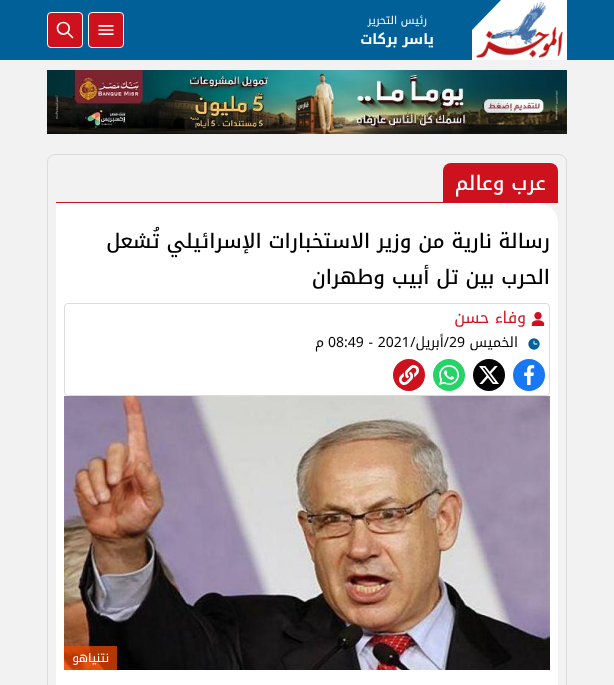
(async () => {
    const canvas = document.querySelector("canvas");
    canvas.width = 614;
    canvas.height = 685;
    const context = canvas.getContext("2d");
    context.miterLimit = 4;
    context.fontKerning = "normal";
    function write(s, x, y, font, color) {
        context.font = font;
        context.fillStyle = color;
        context.fillText(s, x, y);
    }
    function block(x, y, w, h, color) {
        context.fillStyle = color;
        context.fillRect(x, y, w, h);
    }
    async function photo(src, x, y, w, h) {
        const img = new Image();
        img.src = src;
        await img.decode();
        context.drawImage(img, x, y, w, h);
    }

    block(0, 0, 614, 685, "rgb(242, 242, 242)");
    block(0, 0, 614, 60, "rgb(1, 96, 152)");
    context.fillStyle = "rgb(255, 255, 255)";
    context.beginPath();
    context.moveTo(501, 0);
    context.lineTo(472, 30);
    context.lineTo(472, 60);
    context.lineTo(567, 60);
    context.lineTo(567, 0);
    context.closePath();
    context.fill();
    await photo("media/1.png", 476, 2, 87, 56);
    context.direction = "rtl";
    write("رئيس التحرير", 427, 24, "11px Noto Kufi Arabic", "rgb(255, 255, 255)");
    write("ياسر بركات", 434, 44, "bold 14px Noto Kufi Arabic", "rgb(255, 255, 255)");
    context.fillStyle = "rgb(205, 17, 29)";
    context.beginPath();
    context.roundRect(88.5, 12.5, 35, 35, 3.5);
    context.fill();
    context.strokeStyle = "rgb(255, 255, 255)";
    context.stroke();
    await photo("media/2.png", 98, 25, 16, 10);
    context.beginPath();
    context.roundRect(47.5, 12.5, 35, 35, 3.5);
    context.fill();
    context.stroke();
    await photo("media/3.png", 56, 21, 18, 18);
    await photo("media/4.png", 47, 70, 520, 64);
    context.beginPath();
    context.roundRect(47.5, 154.5, 519, 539, 7.5);
    context.strokeStyle = "rgb(220, 220, 220)";
    context.stroke();
    block(56, 202, 502, 1, "rgb(205, 17, 29)");
    context.beginPath();
    context.roundRect(443, 163, 115, 39, [8, 8, 0, 0]);
    context.fill();
    write("عرب وعالم", 546, 190, "500 20px Noto Kufi Arabic", "rgb(255, 255, 255)");
    context.beginPath();
    context.moveTo(56, 203);
    context.lineTo(538, 203);
    context.bezierCurveTo(549, 203, 558, 212, 558, 223);
    context.lineTo(558, 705);
    context.lineTo(56, 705);
    context.closePath();
    context.fill();
    write("رسالة نارية من وزير الاستخبارات الإسرائيلي تُشعل", 550, 248, "500 20px Noto Kufi Arabic", "rgb(0, 0, 0)");
    write("الحرب بين تل أبيب وطهران", 550, 284, "500 20px Noto Kufi Arabic", "rgb(0, 0, 0)");
    context.beginPath();
    context.roundRect(64.5, 303.5, 485, 92, 3.5);
    context.stroke();
    await photo("media/5.png", 531, 312, 14, 14);
    write("وفاء حسن", 526, 323, "16px Noto Kufi Arabic", "rgb(205, 17, 29)");
    await photo("media/6.png", 528, 338, 12, 12);
    write("الخميس", 518, 347, "14px Noto Kufi Arabic", "rgb(0, 0, 0)");
    context.direction = "ltr";
    write("29", 449, 347, "14px Noto Kufi Arabic", "rgb(0, 0, 0)");
    context.direction = "rtl";
    write("/أبريل/", 449, 347, "14px Noto Kufi Arabic", "rgb(0, 0, 0)");
    context.direction = "ltr";
    write("08:49 - 2021", 328, 347, "14px Noto Kufi Arabic", "rgb(0, 0, 0)");
    context.direction = "rtl";
    write("م", 324, 347, "14px Noto Kufi Arabic", "rgb(0, 0, 0)");
    context.fillStyle = "rgb(24, 119, 242)";
    context.beginPath();
    context.arc(529, 375, 16, 0, Math.PI * 2);
    context.fill();
    await photo("media/7.png", 524, 365, 11, 20);
    context.fillStyle = "rgb(0, 0, 0)";
    context.beginPath();
    context.arc(489, 375, 16, 0, Math.PI * 2);
    context.fill();
    await photo("media/8.png", 479, 366, 20, 18);
    context.fillStyle = "rgb(37, 211, 102)";
    context.beginPath();
    context.arc(449, 375, 16, 0, Math.PI * 2);
    context.fill();
    await photo("media/9.png", 439, 365, 20, 20);
    context.fillStyle = "rgb(205, 17, 29)";
    context.beginPath();
    context.arc(409, 375, 16, 0, Math.PI * 2);
    context.fill();
    await photo("media/10.png", 399, 365, 20, 20);
    await photo("media/11.png", 64, 396, 486, 274);
    block(64, 646, 53, 24, "rgba(242, 72, 0, 0.73)");
    write("نتنياهو", 109, 662, "12px Noto Kufi Arabic", "rgb(255, 255, 255)");
})();
